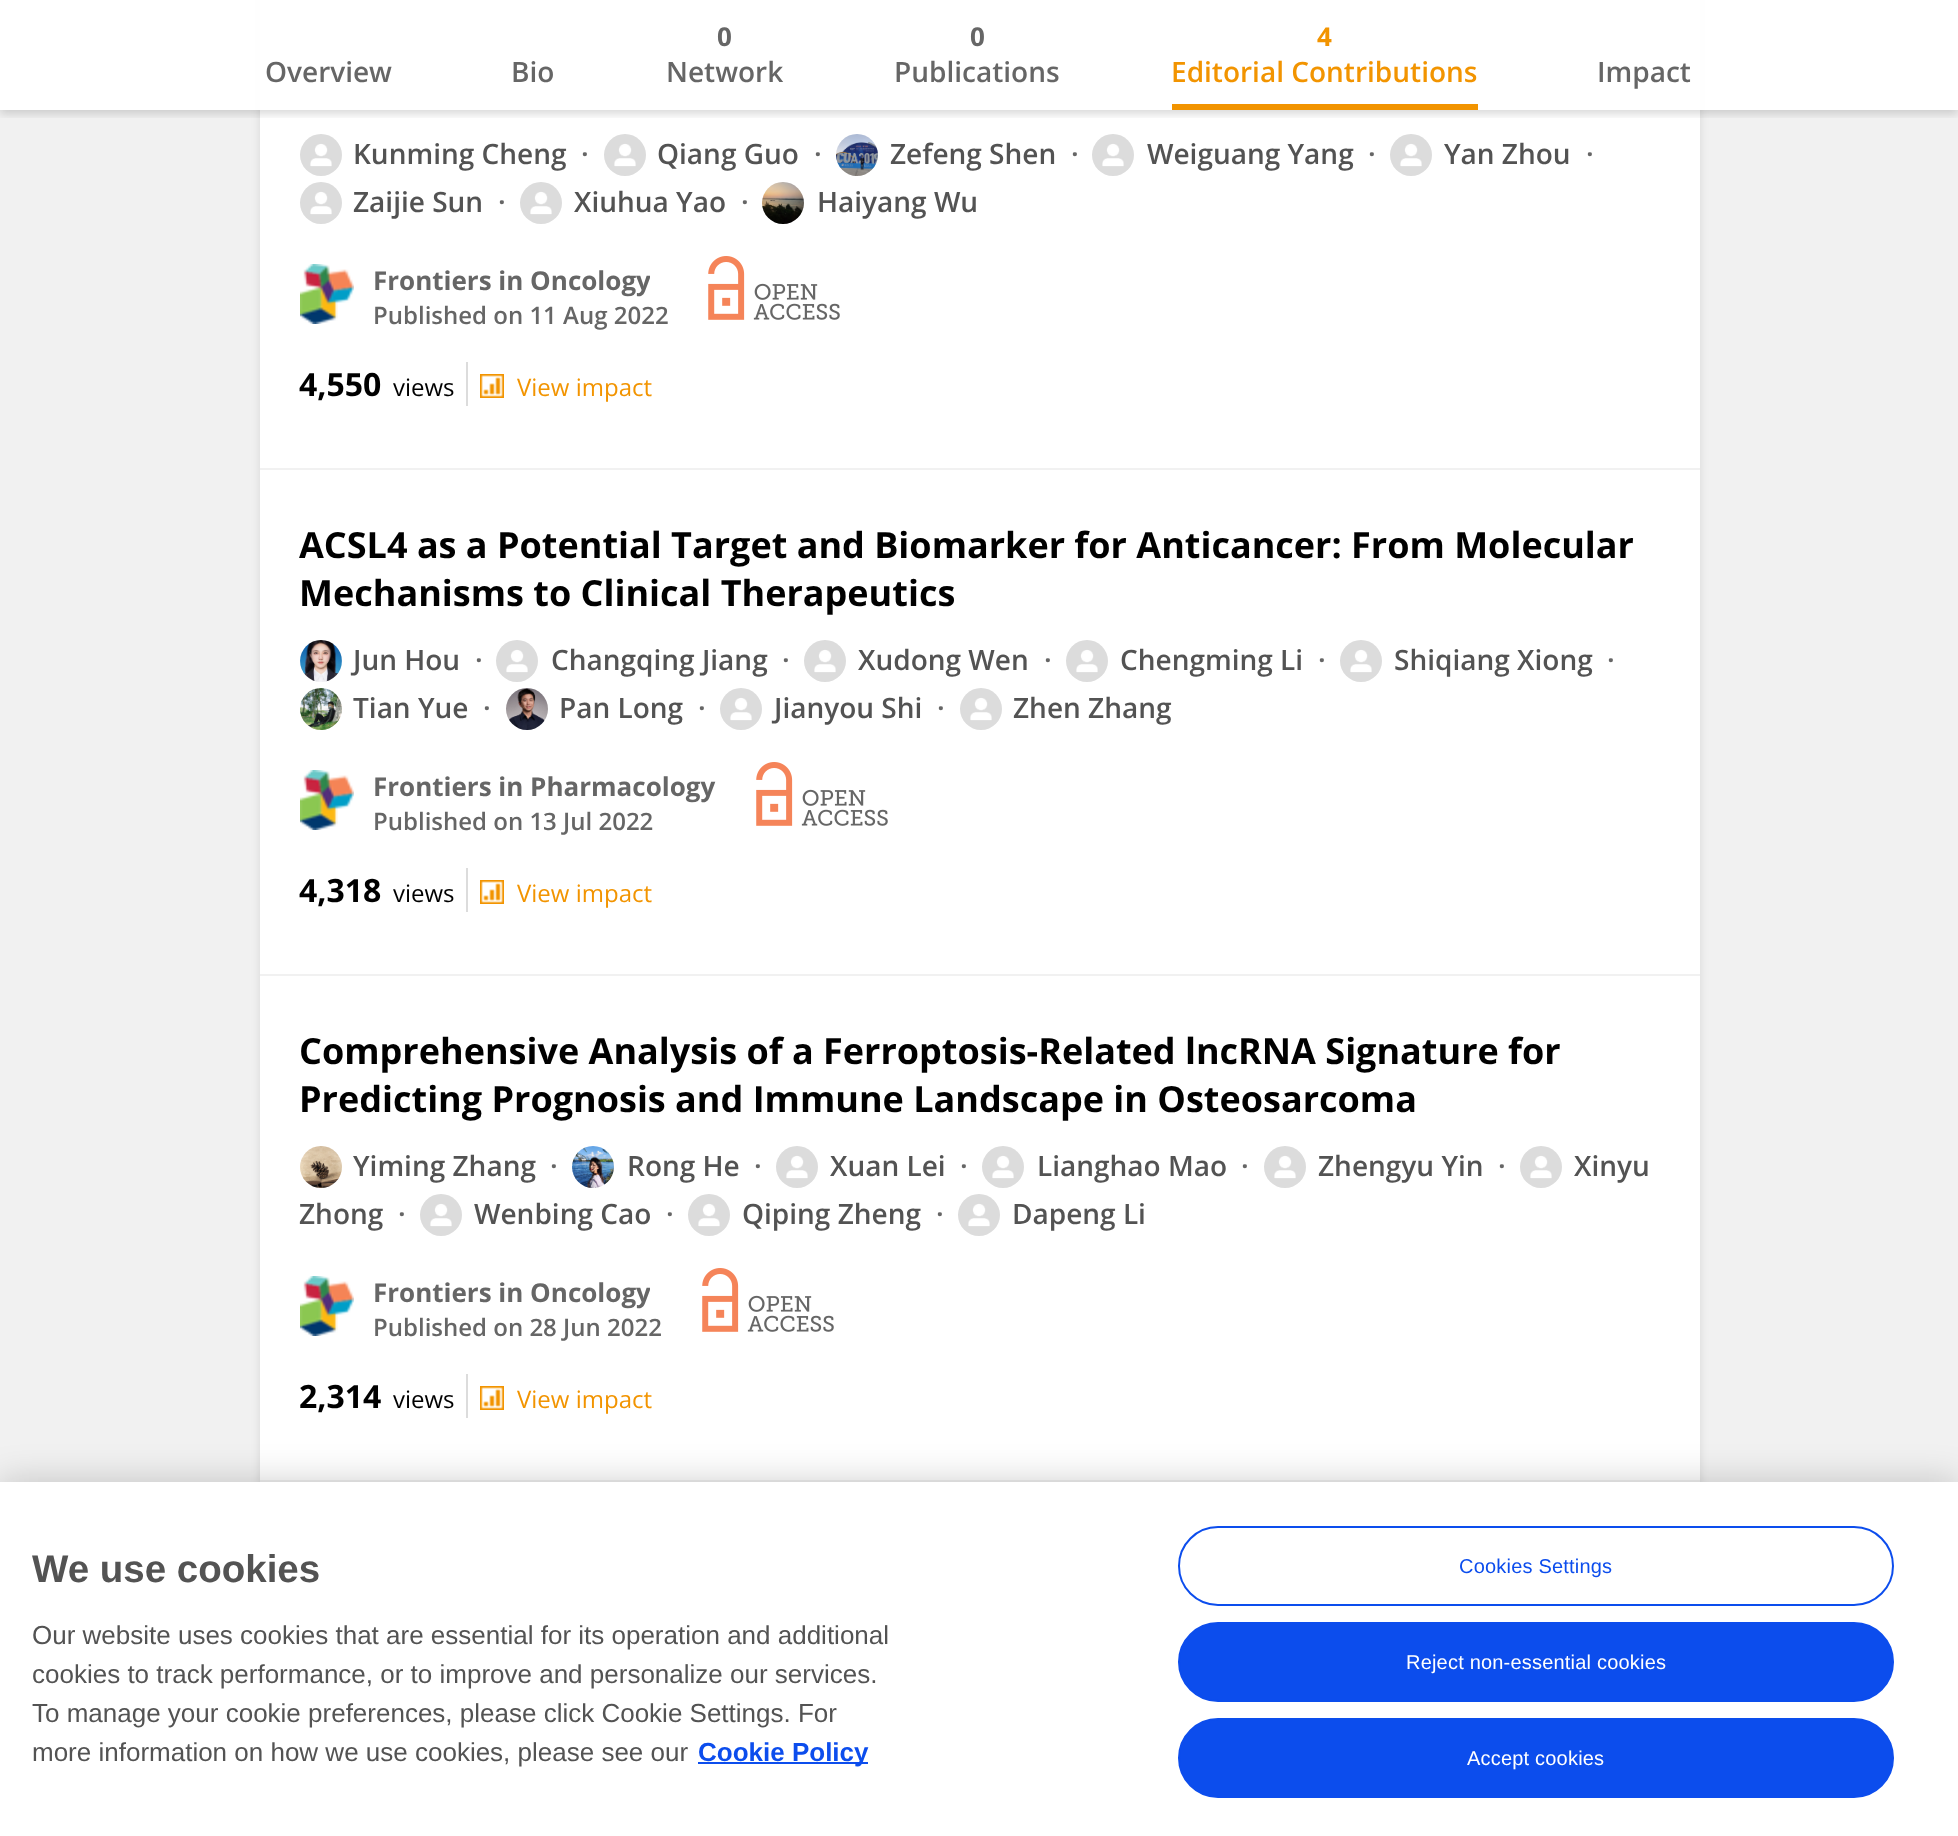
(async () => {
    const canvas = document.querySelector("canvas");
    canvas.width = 1958;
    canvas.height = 1836;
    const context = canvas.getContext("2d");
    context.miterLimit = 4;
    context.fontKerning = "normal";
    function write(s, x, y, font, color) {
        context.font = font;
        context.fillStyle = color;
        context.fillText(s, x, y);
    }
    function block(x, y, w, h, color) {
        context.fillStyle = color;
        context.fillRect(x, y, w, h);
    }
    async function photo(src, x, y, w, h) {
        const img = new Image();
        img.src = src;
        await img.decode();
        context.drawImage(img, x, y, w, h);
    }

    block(0, 0, 1958, 1836, "rgb(241, 241, 241)");
    context.fillStyle = "rgba(0, 0, 0, 0.1)";
    context.filter = "blur(5px)";
    context.beginPath();
    context.roundRect(260, -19, 1440, 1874, 4);
    context.fill();
    context.filter = "none";
    block(260, 0, 1440, 1480, "rgb(255, 255, 255)");
    context.save();
    context.beginPath();
    context.rect(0, 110, 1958, 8);
    context.clip();
    context.fillStyle = "rgba(0, 0, 0, 0.15)";
    context.filter = "blur(4px)";
    context.beginPath();
    context.rect(0, 4, 1958, 110);
    context.fill();
    context.filter = "none";
    context.restore();
    block(0, 0, 1958, 110, "rgba(255, 255, 255, 0.95)");
    write("Overview", 265, 82, "600 28px Open Sans", "rgb(102, 102, 102)");
    write("Bio", 511, 82, "600 28px Open Sans", "rgb(102, 102, 102)");
    write("0", 717, 46, "bold 26px Open Sans", "rgb(102, 102, 102)");
    write("Network", 666, 82, "600 28px Open Sans", "rgb(102, 102, 102)");
    write("0", 970, 46, "bold 26px Open Sans", "rgb(102, 102, 102)");
    write("Publications", 894, 82, "600 28px Open Sans", "rgb(102, 102, 102)");
    block(1172, 104, 306, 6, "rgb(242, 148, 0)");
    write("4", 1317, 46, "bold 26px Open Sans", "rgb(242, 148, 0)");
    write("Editorial Contributions", 1171, 82, "600 28px Open Sans", "rgb(242, 148, 0)");
    write("Impact", 1597, 82, "600 28px Open Sans", "rgb(102, 102, 102)");
    block(260, 468, 1440, 2, "rgb(241, 241, 241)");
    await photo("media/1.png", 300, 134, 42, 42);
    write("Kunming Cheng", 353, 164, "600 28px Open Sans", "rgb(83, 83, 83)");
    write("·", 581, 164, "600 28px Open Sans", "rgb(102, 102, 102)");
    await photo("media/2.png", 604, 134, 42, 42);
    write("Qiang Guo", 657, 164, "600 28px Open Sans", "rgb(83, 83, 83)");
    write("·", 814, 164, "600 28px Open Sans", "rgb(102, 102, 102)");
    await photo("media/3.png", 836, 134, 42, 42);
    write("Zefeng Shen", 890, 164, "600 28px Open Sans", "rgb(83, 83, 83)");
    write("·", 1071, 164, "600 28px Open Sans", "rgb(102, 102, 102)");
    await photo("media/1.png", 1092, 134, 42, 42);
    write("Weiguang Yang", 1147, 164, "600 28px Open Sans", "rgb(83, 83, 83)");
    write("·", 1368, 164, "600 28px Open Sans", "rgb(102, 102, 102)");
    await photo("media/4.png", 1390, 134, 42, 42);
    write("Yan Zhou", 1444, 164, "600 28px Open Sans", "rgb(83, 83, 83)");
    write("·", 1586, 164, "600 28px Open Sans", "rgb(102, 102, 102)");
    await photo("media/1.png", 300, 182, 42, 42);
    write("Zaijie Sun", 353, 212, "600 28px Open Sans", "rgb(83, 83, 83)");
    write("·", 498, 212, "600 28px Open Sans", "rgb(102, 102, 102)");
    await photo("media/2.png", 520, 182, 42, 42);
    write("Xiuhua Yao", 574, 212, "600 28px Open Sans", "rgb(83, 83, 83)");
    write("·", 741, 212, "600 28px Open Sans", "rgb(102, 102, 102)");
    await photo("media/5.png", 762, 182, 42, 42);
    write("Haiyang Wu", 817, 212, "600 28px Open Sans", "rgb(83, 83, 83)");
    await photo("media/6.png", 300, 264, 54, 60);
    context.save();
    context.beginPath();
    context.rect(374, 264, 276, 34);
    context.clip();
    write("Frontiers in Oncology", 373, 290, "bold 26px Open Sans", "rgb(102, 102, 102)");
    context.restore();
    write("Published on 11 Aug 2022", 373, 324, "600 24px Open Sans", "rgb(102, 102, 102)");
    await photo("media/7.png", 708, 256, 132, 64);
    write("4,550", 299, 396, "bold 32px Open Sans", "rgb(0, 0, 0)");
    write("views", 393, 396, "24px Open Sans", "rgb(0, 0, 0)");
    block(466, 362, 2, 44, "rgb(220, 220, 220)");
    await photo("media/8.png", 480, 374, 24, 24);
    write("View impact", 517, 396, "24px Open Sans", "rgb(242, 148, 0)");
    block(260, 974, 1440, 2, "rgb(241, 241, 241)");
    write("ACSL4 as a Potential Target and Biomarker for Anticancer: From Molecular", 299, 558, "bold 36px Open Sans", "rgb(0, 0, 0)");
    write("Mechanisms to Clinical Therapeutics", 299, 606, "bold 36px Open Sans", "rgb(0, 0, 0)");
    await photo("media/9.png", 300, 640, 42, 42);
    write("Jun Hou", 353, 670, "600 28px Open Sans", "rgb(83, 83, 83)");
    write("·", 475, 670, "600 28px Open Sans", "rgb(102, 102, 102)");
    await photo("media/10.png", 496, 640, 42, 42);
    write("Changqing Jiang", 551, 670, "600 28px Open Sans", "rgb(83, 83, 83)");
    write("·", 782, 670, "600 28px Open Sans", "rgb(102, 102, 102)");
    await photo("media/1.png", 804, 640, 42, 42);
    write("Xudong Wen", 858, 670, "600 28px Open Sans", "rgb(83, 83, 83)");
    write("·", 1044, 670, "600 28px Open Sans", "rgb(102, 102, 102)");
    await photo("media/1.png", 1066, 640, 42, 42);
    write("Chengming Li", 1120, 670, "600 28px Open Sans", "rgb(83, 83, 83)");
    write("·", 1318, 670, "600 28px Open Sans", "rgb(102, 102, 102)");
    await photo("media/11.png", 1340, 640, 42, 42);
    write("Shiqiang Xiong", 1394, 670, "600 28px Open Sans", "rgb(83, 83, 83)");
    write("·", 1607, 670, "600 28px Open Sans", "rgb(102, 102, 102)");
    await photo("media/12.png", 300, 688, 42, 42);
    write("Tian Yue", 353, 718, "600 28px Open Sans", "rgb(83, 83, 83)");
    write("·", 483, 718, "600 28px Open Sans", "rgb(102, 102, 102)");
    await photo("media/13.png", 506, 688, 42, 42);
    write("Pan Long", 559, 718, "600 28px Open Sans", "rgb(83, 83, 83)");
    write("·", 698, 718, "600 28px Open Sans", "rgb(102, 102, 102)");
    await photo("media/4.png", 720, 688, 42, 42);
    write("Jianyou Shi", 774, 718, "600 28px Open Sans", "rgb(83, 83, 83)");
    write("·", 937, 718, "600 28px Open Sans", "rgb(102, 102, 102)");
    await photo("media/14.png", 960, 688, 42, 42);
    write("Zhen Zhang", 1013, 718, "600 28px Open Sans", "rgb(83, 83, 83)");
    await photo("media/6.png", 300, 770, 54, 60);
    write("Frontiers in Pharmacology", 373, 796, "bold 26px Open Sans", "rgb(102, 102, 102)");
    write("Published on 13 Jul 2022", 373, 830, "600 24px Open Sans", "rgb(102, 102, 102)");
    await photo("media/7.png", 756, 762, 132, 64);
    write("4,318", 299, 902, "bold 32px Open Sans", "rgb(0, 0, 0)");
    write("views", 393, 902, "24px Open Sans", "rgb(0, 0, 0)");
    block(466, 868, 2, 44, "rgb(220, 220, 220)");
    await photo("media/8.png", 480, 880, 24, 24);
    write("View impact", 517, 902, "24px Open Sans", "rgb(242, 148, 0)");
    block(260, 1480, 1440, 2, "rgb(241, 241, 241)");
    write("Comprehensive Analysis of a Ferroptosis-Related lncRNA Signature for", 299, 1064, "bold 36px Open Sans", "rgb(0, 0, 0)");
    write("Predicting Prognosis and Immune Landscape in Osteosarcoma", 299, 1112, "bold 36px Open Sans", "rgb(0, 0, 0)");
    await photo("media/15.png", 300, 1146, 42, 42);
    write("Yiming Zhang", 353, 1176, "600 28px Open Sans", "rgb(83, 83, 83)");
    write("·", 550, 1176, "600 28px Open Sans", "rgb(102, 102, 102)");
    await photo("media/16.png", 982, 1146, 42, 42);
    write("Lianghao Mao", 1037, 1176, "600 28px Open Sans", "rgb(83, 83, 83)");
    write("·", 1241, 1176, "600 28px Open Sans", "rgb(102, 102, 102)");
    await photo("media/17.png", 1264, 1146, 42, 42);
    write("Zhengyu Yin", 1318, 1176, "600 28px Open Sans", "rgb(83, 83, 83)");
    write("·", 1498, 1176, "600 28px Open Sans", "rgb(102, 102, 102)");
    await photo("media/18.png", 1520, 1146, 42, 42);
    write("Xinyu", 1574, 1176, "600 28px Open Sans", "rgb(83, 83, 83)");
    write("Zhong", 299, 1224, "600 28px Open Sans", "rgb(83, 83, 83)");
    write("·", 398, 1224, "600 28px Open Sans", "rgb(102, 102, 102)");
    await photo("media/19.png", 572, 1146, 42, 42);
    write("Rong He", 627, 1176, "600 28px Open Sans", "rgb(83, 83, 83)");
    write("·", 754, 1176, "600 28px Open Sans", "rgb(102, 102, 102)");
    await photo("media/2.png", 776, 1146, 42, 42);
    write("Xuan Lei", 830, 1176, "600 28px Open Sans", "rgb(83, 83, 83)");
    write("·", 960, 1176, "600 28px Open Sans", "rgb(102, 102, 102)");
    await photo("media/14.png", 420, 1194, 42, 42);
    write("Wenbing Cao", 474, 1224, "600 28px Open Sans", "rgb(83, 83, 83)");
    write("·", 666, 1224, "600 28px Open Sans", "rgb(102, 102, 102)");
    await photo("media/14.png", 688, 1194, 42, 42);
    write("Qiping Zheng", 742, 1224, "600 28px Open Sans", "rgb(83, 83, 83)");
    write("·", 936, 1224, "600 28px Open Sans", "rgb(102, 102, 102)");
    await photo("media/14.png", 958, 1194, 42, 42);
    write("Dapeng Li", 1012, 1224, "600 28px Open Sans", "rgb(83, 83, 83)");
    await photo("media/6.png", 300, 1276, 54, 60);
    context.save();
    context.beginPath();
    context.rect(374, 1276, 276, 34);
    context.clip();
    write("Frontiers in Oncology", 373, 1302, "bold 26px Open Sans", "rgb(102, 102, 102)");
    context.restore();
    write("Published on 28 Jun 2022", 373, 1336, "600 24px Open Sans", "rgb(102, 102, 102)");
    await photo("media/7.png", 702, 1268, 132, 64);
    write("2,314", 299, 1408, "bold 32px Open Sans", "rgb(0, 0, 0)");
    write("views", 393, 1408, "24px Open Sans", "rgb(0, 0, 0)");
    block(466, 1374, 2, 44, "rgb(220, 220, 220)");
    await photo("media/8.png", 480, 1386, 24, 24);
    write("View impact", 517, 1408, "24px Open Sans", "rgb(242, 148, 0)");
    context.fillStyle = "rgba(0, 0, 0, 0.2)";
    context.filter = "blur(18px)";
    context.beginPath();
    context.rect(0, 1482, 1958, 354);
    context.fill();
    context.filter = "none";
    block(0, 1482, 1958, 354, "rgb(255, 255, 255)");
    write("We use cookies", 32, 1582, "bold 38.5px Liberation Sans", "rgb(83, 83, 83)");
    write("Our website uses cookies that are essential for its operation and additional", 32, 1644, "26px Liberation Sans", "rgb(83, 83, 83)");
    write("cookies to track performance, or to improve and personalize our services.", 32, 1683, "26px Liberation Sans", "rgb(83, 83, 83)");
    write("To manage your cookie preferences, please click Cookie Settings. For", 32, 1722, "26px Liberation Sans", "rgb(83, 83, 83)");
    write("more information on how we use cookies, please see our", 32, 1761, "26px Liberation Sans", "rgb(83, 83, 83)");
    block(698, 1762, 170, 2, "rgb(12, 77, 237)");
    write("Cookie Policy", 698, 1761, "bold 26px Liberation Sans", "rgb(12, 77, 237)");
    context.beginPath();
    context.roundRect(1179, 1527, 714, 78, 39);
    context.strokeStyle = "rgb(12, 77, 237)";
    context.lineWidth = 2;
    context.stroke();
    context.letterSpacing = "0.2px";
    write("Cookies Settings", 1459, 1573, "20px Liberation Sans", "rgb(12, 77, 237)");
    context.beginPath();
    context.roundRect(1179, 1623, 714, 78, 39);
    context.fill();
    context.stroke();
    write("Reject non-essential cookies", 1406, 1669, "20px Liberation Sans", "rgb(255, 255, 255)");
    context.fillStyle = "rgb(12, 77, 237)";
    context.beginPath();
    context.roundRect(1179, 1719, 714, 78, 39);
    context.fill();
    context.stroke();
    write("Accept cookies", 1467, 1765, "20px Liberation Sans", "rgb(255, 255, 255)");
})();
